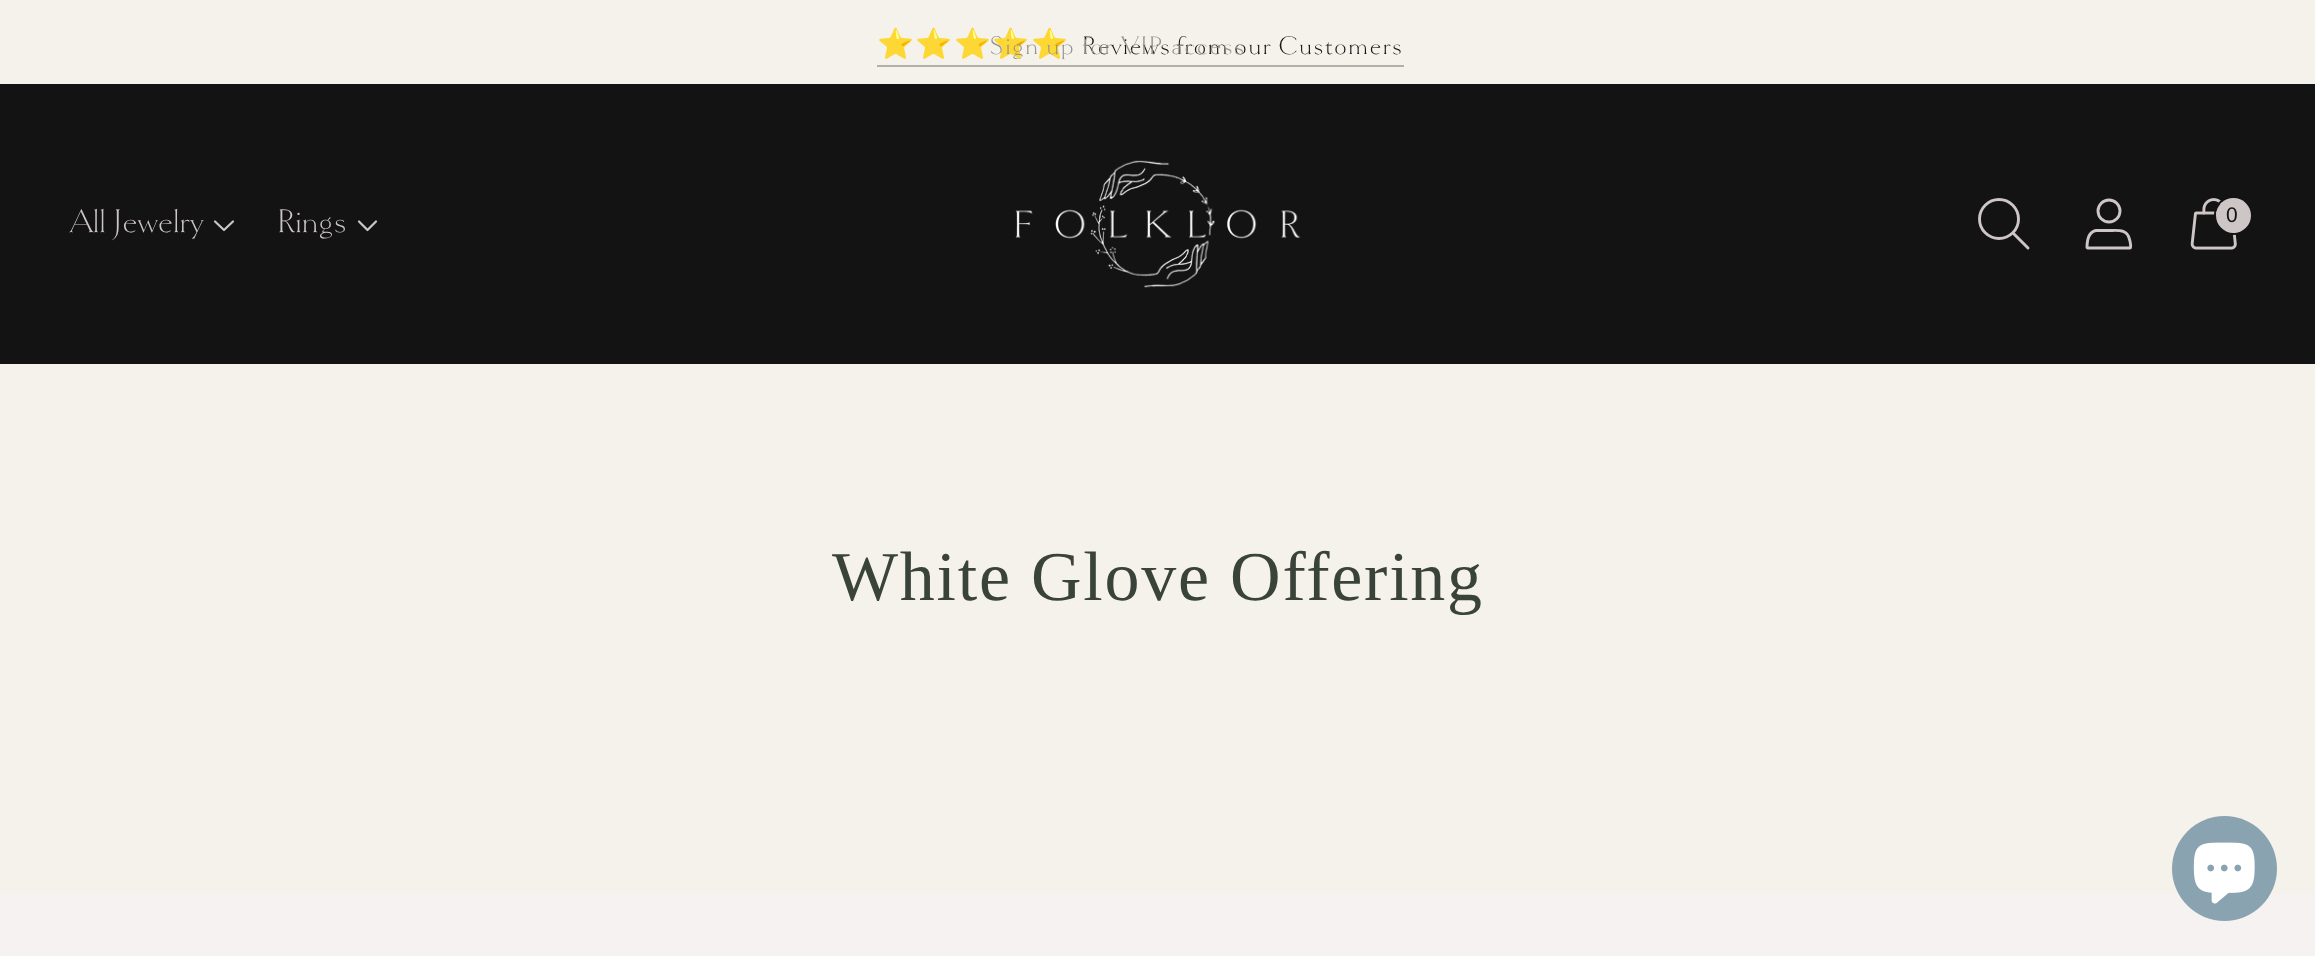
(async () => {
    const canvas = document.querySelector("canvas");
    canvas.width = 2315;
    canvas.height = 956;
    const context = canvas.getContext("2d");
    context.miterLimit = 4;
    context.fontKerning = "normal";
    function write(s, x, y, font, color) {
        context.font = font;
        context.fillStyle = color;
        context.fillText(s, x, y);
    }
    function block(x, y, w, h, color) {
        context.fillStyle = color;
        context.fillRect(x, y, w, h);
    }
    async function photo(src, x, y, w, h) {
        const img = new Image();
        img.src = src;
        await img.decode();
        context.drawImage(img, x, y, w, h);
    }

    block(0, 0, 2315, 956, "rgb(245, 242, 235)");
    context.letterSpacing = "1.5px";
    write("⭐️⭐️⭐️⭐️⭐️", 877, 54, "29.75px Noto Color Emoji", "rgb(19, 19, 19)");
    context.wordSpacing = "-2px";
    write("Reviews from our Customers", 1082, 54, "300 29.75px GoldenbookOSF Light", "rgb(19, 19, 19)");
    block(877, 65, 527, 2, "rgb(177, 175, 170)");
    context.wordSpacing = "0px";
    write("Sign up for VIP access", 989, 54, "300 29.75px GoldenbookOSF Light", "rgb(147, 146, 142)");
    block(0, 84, 2315, 280, "rgb(19, 19, 19)");
    context.letterSpacing = "0px";
    write("All Jewelry", 70, 232, "300 38.5px GoldenbookOSF Light", "rgb(206, 198, 198)");
    context.beginPath();
    context.moveTo(215, 221.5);
    context.lineTo(224, 230);
    context.lineTo(233, 221.5);
    context.strokeStyle = "rgb(206, 198, 198)";
    context.lineWidth = 2.2;
    context.lineCap = "round";
    context.lineJoin = "round";
    context.stroke();
    write("Rings", 277, 232, "300 38.5px GoldenbookOSF Light", "rgb(206, 198, 198)");
    context.beginPath();
    context.moveTo(359, 221.5);
    context.lineTo(367.5, 230);
    context.lineTo(376, 221.5);
    context.stroke();
    await photo("media/1.png", 1015, 160, 286, 128);
    context.beginPath();
    context.arc(1999, 219, 19.5, 0, Math.PI * 2);
    context.lineWidth = 2.9;
    context.stroke();
    context.beginPath();
    context.moveTo(2014, 234);
    context.lineTo(2028, 248);
    context.stroke();
    context.beginPath();
    context.arc(2109, 211, 11, 0, Math.PI * 2);
    context.stroke();
    context.beginPath();
    context.moveTo(2130, 248);
    context.bezierCurveTo(2131.5, 248, 2130, 240.5, 2129.5, 239.5);
    context.bezierCurveTo(2127.5, 228.5, 2117.5, 230.5, 2108.5, 230.5);
    context.lineTo(2096, 230.5);
    context.bezierCurveTo(2088.5, 232, 2087, 240.5, 2087, 247.5);
    context.lineTo(2087.5, 248);
    context.closePath();
    context.stroke();
    await photo("media/2.png", 2190, 198, 47, 52);
    context.beginPath();
    context.roundRect(2215, 197, 36, 37, 18);
    context.strokeStyle = "rgb(19, 19, 19)";
    context.lineWidth = 2;
    context.lineJoin = "miter";
    context.stroke();
    context.beginPath();
    context.arc(2233.5, 215.5, 17.5, 0, Math.PI * 2);
    context.fill();
    context.letterSpacing = "2px";
    write("0", 2226, 222, "21px Liberation Sans", "rgb(19, 19, 19)");
    context.letterSpacing = "1.75px";
    write("White Glove Offering", 832, 600, "70px Liberation Serif", "rgb(58, 67, 58)");
    block(0, 894, 2315, 62, "rgb(245, 242, 241)");
    context.fillStyle = "rgb(138, 163, 177)";
    context.beginPath();
    context.arc(2224.5, 868.5, 52.5, 0, Math.PI * 2);
    context.fill();
    await photo("media/3.png", 2193, 842, 62, 62);
})();
